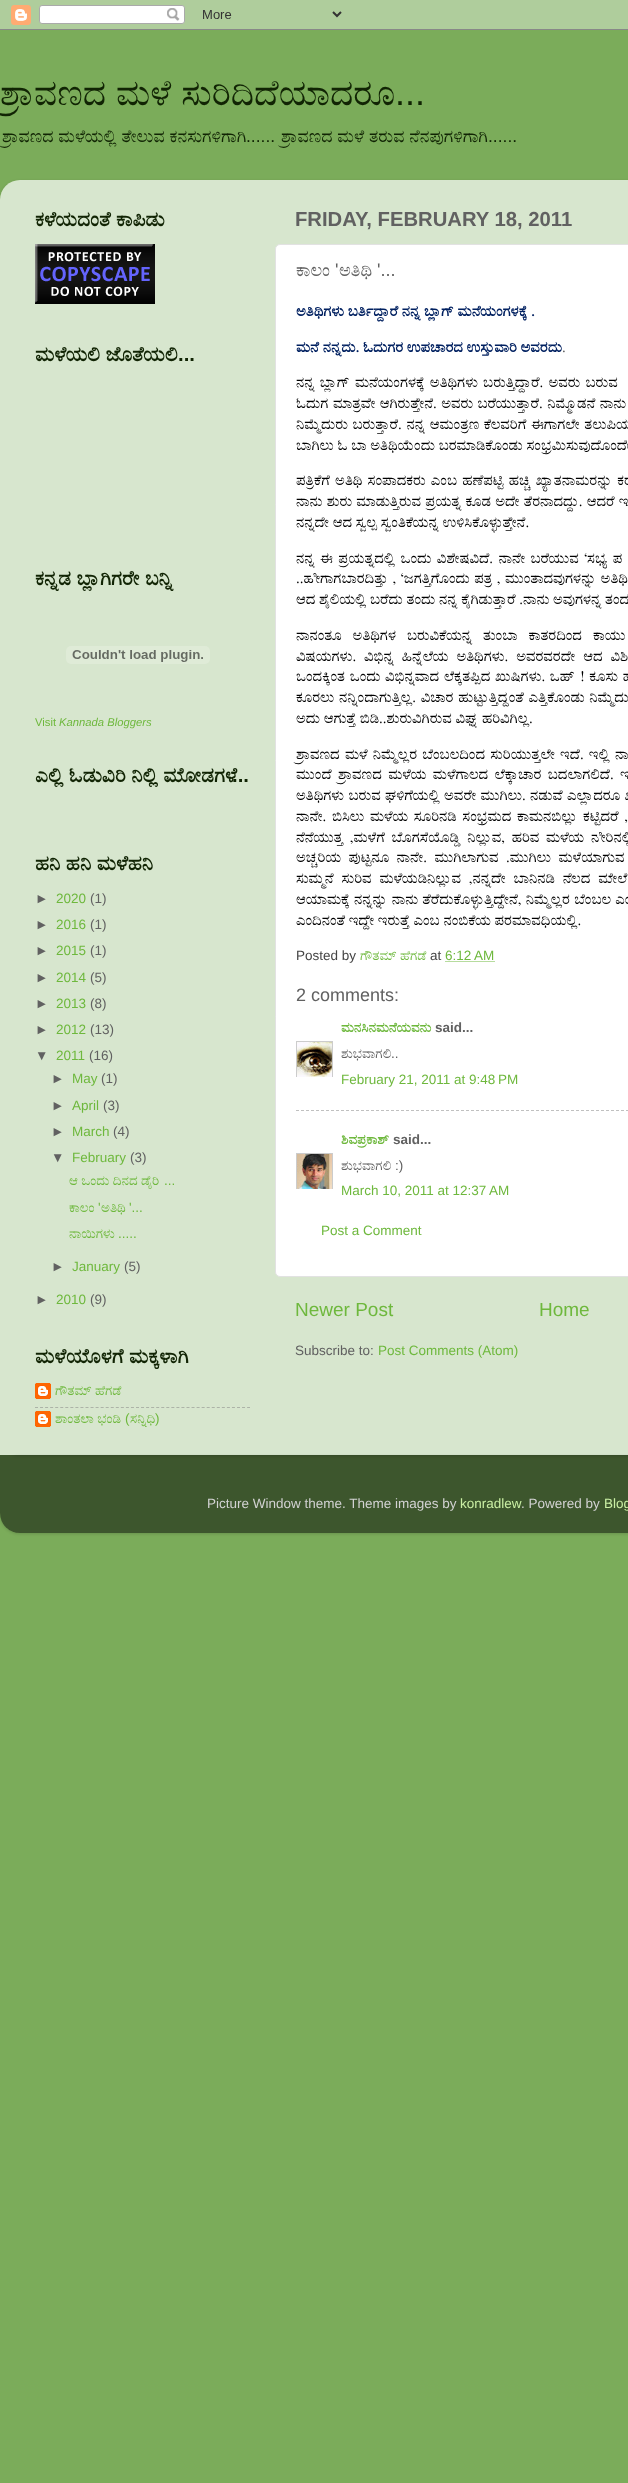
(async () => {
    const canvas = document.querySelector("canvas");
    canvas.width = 628;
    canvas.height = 2483;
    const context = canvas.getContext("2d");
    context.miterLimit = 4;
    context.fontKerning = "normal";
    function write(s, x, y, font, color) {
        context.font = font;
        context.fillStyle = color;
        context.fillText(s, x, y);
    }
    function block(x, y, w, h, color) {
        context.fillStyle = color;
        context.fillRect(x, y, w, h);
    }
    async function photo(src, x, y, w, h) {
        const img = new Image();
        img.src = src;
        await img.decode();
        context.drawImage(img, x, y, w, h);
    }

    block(0, 0, 628, 2483, "rgb(123, 172, 90)");
    await photo("media/1.png", 0, 0, 628, 30);
    context.wordSpacing = "1px";
    write("ಶ್ರಾವಣದ ಮಳೆ ಸುರಿದಿದೆಯಾದರೂ", 0, 105, "36px FreeSerif", "rgb(17, 36, 4)");
    context.wordSpacing = "0px";
    write("...", 395, 105, "36px Liberation Sans", "rgb(17, 36, 4)");
    context.wordSpacing = "0.5px";
    write("ಶ್ರಾವಣದ ಮಳೆಯಲ್ಲಿ ತೇಲುವ ಕನಸುಗಳಿಗಾಗಿ", 2, 142, "17.5px FreeSerif", "rgb(17, 36, 4)");
    context.wordSpacing = "0px";
    write("......", 246, 142, "17.5px Liberation Sans", "rgb(17, 36, 4)");
    context.wordSpacing = "0.5px";
    write("ಶ್ರಾವಣದ ಮಳೆ ತರುವ ನೆನಪುಗಳಿಗಾಗಿ", 281, 142, "17.5px FreeSerif", "rgb(17, 36, 4)");
    context.wordSpacing = "0px";
    write("......", 488, 142, "17.5px Liberation Sans", "rgb(17, 36, 4)");
    context.save();
    context.beginPath();
    context.moveTo(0, 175);
    context.lineTo(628, 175);
    context.lineTo(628, 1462);
    context.lineTo(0, 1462);
    context.closePath();
    context.moveTo(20, 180);
    context.lineTo(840, 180);
    context.bezierCurveTo(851, 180, 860, 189, 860, 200);
    context.lineTo(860, 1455);
    context.lineTo(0, 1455);
    context.lineTo(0, 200);
    context.bezierCurveTo(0, 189, 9, 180, 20, 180);
    context.closePath();
    context.clip("evenodd");
    context.fillStyle = "rgba(0, 0, 0, 0.15)";
    context.filter = "blur(1.5px)";
    context.beginPath();
    context.roundRect(0, 181, 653, 1275, 20);
    context.fill();
    context.filter = "none";
    context.restore();
    await photo("media/2.png", 0, 180, 628, 1275);
    context.wordSpacing = "0.5px";
    write("ಕಳೆಯದಂತೆ ಕಾಪಿಡು", 35, 226, "bold 20.25px FreeSerif", "rgb(17, 36, 4)");
    await photo("media/3.png", 35, 244, 120, 60);
    write("ಮಳೆಯಲಿ ಜೊತೆಯಲಿ", 35, 361, "bold 20.25px FreeSerif", "rgb(17, 36, 4)");
    context.wordSpacing = "0px";
    write("...", 178, 361, "bold 20.25px Liberation Sans", "rgb(17, 36, 4)");
    context.wordSpacing = "0.5px";
    write("ಕನ್ನಡ ಬ್ಲಾಗಿಗರೇ ಬನ್ನಿ", 35, 585, "bold 20.25px FreeSerif", "rgb(17, 36, 4)");
    await photo("media/4.png", 66, 646, 144, 18);
    context.wordSpacing = "0px";
    write("Visit", 35, 726, "11.25px Liberation Sans", "rgb(110, 184, 61)");
    write("Kannada Bloggers", 59, 726, "italic 11.25px Liberation Sans", "rgb(110, 184, 61)");
    context.wordSpacing = "0.5px";
    write("ಎಲ್ಲಿ ಓಡುವಿರಿ ನಿಲ್ಲಿ ಮೋಡಗಳೆ", 35, 782, "bold 20.25px FreeSerif", "rgb(17, 36, 4)");
    context.wordSpacing = "0px";
    write("...", 232, 782, "bold 20.25px Liberation Sans", "rgb(17, 36, 4)");
    context.wordSpacing = "0.5px";
    write("ಹನಿ ಹನಿ ಮಳೆಹನಿ", 35, 870, "bold 20.25px FreeSerif", "rgb(17, 36, 4)");
    context.wordSpacing = "0px";
    write("►", 35, 903, "13.5px Liberation Sans", "rgb(97, 97, 97)");
    write("2020", 56, 903, "13.5px Liberation Sans", "rgb(110, 184, 61)");
    write("(1)", 90, 903, "13.5px Liberation Sans", "rgb(97, 97, 97)");
    write("►", 35, 929, "13.5px Liberation Sans", "rgb(97, 97, 97)");
    write("2016", 56, 929, "13.5px Liberation Sans", "rgb(110, 184, 61)");
    write("(1)", 90, 929, "13.5px Liberation Sans", "rgb(97, 97, 97)");
    write("►", 35, 955, "13.5px Liberation Sans", "rgb(97, 97, 97)");
    write("2015", 56, 955, "13.5px Liberation Sans", "rgb(110, 184, 61)");
    write("(1)", 90, 955, "13.5px Liberation Sans", "rgb(97, 97, 97)");
    write("►", 35, 982, "13.5px Liberation Sans", "rgb(97, 97, 97)");
    write("2014", 56, 982, "13.5px Liberation Sans", "rgb(110, 184, 61)");
    write("(5)", 90, 982, "13.5px Liberation Sans", "rgb(97, 97, 97)");
    write("►", 35, 1008, "13.5px Liberation Sans", "rgb(97, 97, 97)");
    write("2013", 56, 1008, "13.5px Liberation Sans", "rgb(110, 184, 61)");
    write("(8)", 90, 1008, "13.5px Liberation Sans", "rgb(97, 97, 97)");
    write("►", 35, 1034, "13.5px Liberation Sans", "rgb(97, 97, 97)");
    write("2012", 56, 1034, "13.5px Liberation Sans", "rgb(110, 184, 61)");
    write("(13)", 90, 1034, "13.5px Liberation Sans", "rgb(97, 97, 97)");
    write("▼", 35, 1060, "13.5px Liberation Sans", "rgb(97, 97, 97)");
    write("2011", 56, 1060, "13.5px Liberation Sans", "rgb(110, 184, 61)");
    write("(16)", 89, 1060, "13.5px Liberation Sans", "rgb(97, 97, 97)");
    write("►", 51, 1083, "13.5px Liberation Sans", "rgb(97, 97, 97)");
    write("May", 72, 1083, "13.5px Liberation Sans", "rgb(110, 184, 61)");
    write("(1)", 101, 1083, "13.5px Liberation Sans", "rgb(97, 97, 97)");
    write("►", 51, 1110, "13.5px Liberation Sans", "rgb(97, 97, 97)");
    write("April", 72, 1110, "13.5px Liberation Sans", "rgb(110, 184, 61)");
    write("(3)", 103, 1110, "13.5px Liberation Sans", "rgb(97, 97, 97)");
    write("►", 51, 1136, "13.5px Liberation Sans", "rgb(97, 97, 97)");
    write("March", 72, 1136, "13.5px Liberation Sans", "rgb(110, 184, 61)");
    write("(4)", 113, 1136, "13.5px Liberation Sans", "rgb(97, 97, 97)");
    write("▼", 51, 1162, "13.5px Liberation Sans", "rgb(97, 97, 97)");
    write("February", 72, 1162, "13.5px Liberation Sans", "rgb(110, 184, 61)");
    write("(3)", 130, 1162, "13.5px Liberation Sans", "rgb(97, 97, 97)");
    write("ಆ ಒಂದು ದಿನದ ಡೈರಿ", 69, 1185, "13.5px FreeSerif", "rgb(110, 184, 61)");
    write("...", 164, 1185, "13.5px Liberation Sans", "rgb(110, 184, 61)");
    write("ಕಾಲಂ", 69, 1212, "13.5px FreeSerif", "rgb(110, 184, 61)");
    write("'", 98, 1212, "13.5px Liberation Sans", "rgb(110, 184, 61)");
    write("ಅತಿಥಿ", 101, 1212, "13.5px FreeSerif", "rgb(110, 184, 61)");
    write("'...", 129, 1212, "13.5px Liberation Sans", "rgb(110, 184, 61)");
    write("ನಾಯಿಗಳು", 69, 1238, "13.5px FreeSerif", "rgb(110, 184, 61)");
    write(".....", 118, 1238, "13.5px Liberation Sans", "rgb(110, 184, 61)");
    write("►", 51, 1271, "13.5px Liberation Sans", "rgb(97, 97, 97)");
    write("January", 72, 1271, "13.5px Liberation Sans", "rgb(110, 184, 61)");
    write("(5)", 124, 1271, "13.5px Liberation Sans", "rgb(97, 97, 97)");
    write("►", 35, 1304, "13.5px Liberation Sans", "rgb(97, 97, 97)");
    write("2010", 56, 1304, "13.5px Liberation Sans", "rgb(110, 184, 61)");
    write("(9)", 90, 1304, "13.5px Liberation Sans", "rgb(97, 97, 97)");
    context.wordSpacing = "0.5px";
    write("ಮಳೆಯೊಳಗೆ ಮಕ್ಕಳಾಗಿ", 35, 1363, "bold 20.25px FreeSerif", "rgb(17, 36, 4)");
    await photo("media/5.png", 35, 1383, 16, 16);
    context.wordSpacing = "0px";
    write("ಗೌತಮ್ ಹೆಗಡೆ", 55, 1395, "13.5px FreeSerif", "rgb(110, 184, 61)");
    context.beginPath();
    context.moveTo(35, 1407.5);
    context.lineTo(250, 1407.5);
    context.strokeStyle = "rgb(172, 179, 167)";
    context.setLineDash([3, 2.05]);
    context.stroke();
    await photo("media/5.png", 35, 1411, 16, 16);
    write("ಶಾಂತಲಾ ಭಂಡಿ", 55, 1423, "13.5px FreeSerif", "rgb(110, 184, 61)");
    write("(", 125, 1423, "13.5px Liberation Sans", "rgb(110, 184, 61)");
    write("ಸನ್ನಿಧಿ", 130, 1423, "13.5px FreeSerif", "rgb(110, 184, 61)");
    write(")", 155, 1423, "13.5px Liberation Sans", "rgb(110, 184, 61)");
    write("FRIDAY, FEBRUARY 18, 2011", 295, 226, "bold 20.25px Liberation Sans", "rgb(97, 97, 97)");
    context.fillStyle = "rgb(255, 255, 255)";
    context.beginPath();
    context.roundRect(275.5, 244.5, 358, 1032, 4.5);
    context.fill();
    context.strokeStyle = "rgb(226, 226, 226)";
    context.setLineDash([]);
    context.stroke();
    write("ಕಾಲಂ", 296, 276, "18px FreeSerif", "rgb(97, 97, 97)");
    write("'", 335, 276, "18px Liberation Sans", "rgb(97, 97, 97)");
    write("ಅತಿಥಿ", 339, 276, "18px FreeSerif", "rgb(97, 97, 97)");
    write("'...", 377, 276, "18px Liberation Sans", "rgb(97, 97, 97)");
    write("ಅತಿಥಿಗಳು ಬರ್ತಿದ್ದಾರೆ ನನ್ನ ಬ್ಲಾಗ್ ಮನೆಯಂಗಳಕ್ಕೆ .", 296, 316, "bold 14.85px FreeSerif", "rgb(0, 32, 96)");
    write("ಮನೆ ನನ್ನದು. ಓದುಗರ ಉಪಚಾರದ ಉಸ್ತುವಾರಿ ಅವರದು", 296, 352, "bold 14.85px FreeSerif", "rgb(0, 32, 96)");
    write(".", 562, 352, "14.85px Liberation Serif", "rgb(97, 97, 97)");
    context.wordSpacing = "1.5px";
    write("ನನ್ನ ಬ್ಲಾಗ್ ಮನೆಯಂಗಳಕ್ಕೆ ಅತಿಥಿಗಳು ಬರುತ್ತಿದ್ದಾರೆ. ಅವರು ಬರುವ", 296, 387, "14.85px FreeSerif", "rgb(0, 0, 0)");
    context.wordSpacing = "0px";
    write("ಓದುಗ", 296, 408, "14.85px FreeSerif", "rgb(0, 0, 0)");
    context.wordSpacing = "0.75px";
    write("ಮಾತ್ರವೇ ಆಗಿರುತ್ತೇನೆ. ಅವರು ಬರೆಯುತ್ತಾರೆ. ನಿಮ್ಮೊಡನೆ ನಾನು", 333, 408, "14.85px FreeSerif", "rgb(0, 0, 0)");
    context.wordSpacing = "1px";
    write("ನಿಮ್ಮೆದುರು ಬರುತ್ತಾರೆ. ನನ್ನ ಆಮಂತ್ರಣ ಕೆಲವರಿಗೆ ಈಗಾಗಲೇ ತಲುಪಿಯ", 296, 429, "14.85px FreeSerif", "rgb(0, 0, 0)");
    context.wordSpacing = "0px";
    write("ಬಾಗಿಲು ಓ ಬಾ ಅತಿಥಿಯೆಂದು ಬರಮಾಡಿಕೊಂಡು ಸಂಭ್ರಮಿಸುವುದೊಂದೇ", 296, 450, "14.85px FreeSerif", "rgb(0, 0, 0)");
    context.wordSpacing = "1.5px";
    write("ಪತ್ರಿಕೆಗೆ ಅತಿಥಿ ಸಂಪಾದಕರು ಎಂಬ ಹಣೆಪಟ್ಟಿ ಹಚ್ಚಿ ಖ್ಯಾತನಾಮರನ್ನು ಕರ", 296, 485, "14.85px FreeSerif", "rgb(0, 0, 0)");
    context.wordSpacing = "0.5px";
    write("ನಾನು ಶುರು ಮಾಡುತ್ತಿರುವ ಪ್ರಯತ್ನ ಕೂಡ ಅದೇ ತೆರನಾದದ್ದು. ಆದರೆ ಇ", 296, 506, "14.85px FreeSerif", "rgb(0, 0, 0)");
    context.wordSpacing = "0px";
    write("ನನ್ನದೇ ಆದ ಸ್ವಲ್ಪ ಸ್ವಂತಿಕೆಯನ್ನ ಉಳಿಸಿಕೊಳ್ಳುತ್ತೇನೆ.", 296, 527, "14.85px FreeSerif", "rgb(0, 0, 0)");
    context.wordSpacing = "1.75px";
    write("ನನ್ನ ಈ ಪ್ರಯತ್ನದಲ್ಲಿ ಒಂದು ವಿಶೇಷವಿದೆ. ನಾನೇ ಬರೆಯುವ ‘ಸಭ್ಯ ಪ", 296, 563, "14.85px FreeSerif", "rgb(0, 0, 0)");
    context.wordSpacing = "0.75px";
    write("..ಹೀಗಾಗಬಾರದಿತ್ತು , ‘ಜಗತ್ತಿಗೊಂದು ಪತ್ರ , ಮುಂತಾದವುಗಳನ್ನು ಅತಿಥಿ", 296, 583, "14.85px FreeSerif", "rgb(0, 0, 0)");
    context.wordSpacing = "0px";
    write("ಆದ ಶೈಲಿಯಲ್ಲಿ ಬರೆದು ತಂದು ನನ್ನ ಕೈಗಿಡುತ್ತಾರೆ .ನಾನು ಅವುಗಳನ್ನ ತಂದ", 296, 604, "14.85px FreeSerif", "rgb(0, 0, 0)");
    context.wordSpacing = "7.25px";
    write("ನಾನಂತೂ ಅತಿಥಿಗಳ ಬರುವಿಕೆಯನ್ನ ತುಂಬಾ ಕಾತರದಿಂದ ಕಾಯು", 296, 640, "14.85px FreeSerif", "rgb(0, 0, 0)");
    context.wordSpacing = "4.25px";
    write("ವಿಷಯಗಳು. ವಿಭಿನ್ನ ಹಿನ್ನೆಲೆಯ ಅತಿಥಿಗಳು. ಅವರವರದೇ ಆದ ವಿಶಿ", 296, 661, "14.85px FreeSerif", "rgb(0, 0, 0)");
    context.wordSpacing = "1px";
    write("ಒಂದಕ್ಕಿಂತ ಒಂದು", 296, 681, "14.85px FreeSerif", "rgb(0, 0, 0)");
    write("ವಿಭಿನ್ನವಾದ ಲೆಕ್ಕತಪ್ಪಿದ", 385, 681, "14.85px FreeSerif", "rgb(0, 0, 0)");
    write("ಖುಷಿಗಳು. ಒಹ್ ! ಕೂಸು ಹ", 495, 681, "14.85px FreeSerif", "rgb(0, 0, 0)");
    write("ಕೂರಲು ನನ್ನಿಂದಾಗುತ್ತಿಲ್ಲ. ವಿಚಾರ ಹುಟ್ಟುತ್ತಿದ್ದಂತೆ ಎತ್ತಿಕೊಂಡು ನಿಮ್ಮೆದು", 296, 702, "14.85px FreeSerif", "rgb(0, 0, 0)");
    context.wordSpacing = "0px";
    write("ಅದು ಆಗುತ್ತೆ ಬಿಡಿ..ಶುರುವಿಗಿರುವ ವಿಘ್ನ ಹರಿವಿಗಿಲ್ಲ.", 296, 723, "14.85px FreeSerif", "rgb(0, 0, 0)");
    context.wordSpacing = "1.5px";
    write("ಶ್ರಾವಣದ ಮಳೆ ನಿಮ್ಮೆಲ್ಲರ ಬೆಂಬಲದಿಂದ ಸುರಿಯುತ್ತಲೇ ಇದೆ. ಇಲ್ಲಿ ನಾ", 296, 759, "14.85px FreeSerif", "rgb(0, 0, 0)");
    context.wordSpacing = "2.75px";
    write("ಮುಂದೆ ಶ್ರಾವಣದ ಮಳೆಯ ಮಳೆಗಾಲದ ಲೆಕ್ಕಾಚಾರ ಬದಲಾಗಲಿದೆ. ಇ", 296, 779, "14.85px FreeSerif", "rgb(0, 0, 0)");
    context.wordSpacing = "0.75px";
    write("ಅತಿಥಿಗಳು ಬರುವ ಘಳಿಗೆಯಲ್ಲಿ ಅವರೇ ಮುಗಿಲು. ನಡುವೆ ಎಲ್ಲಾದರೂ ಖ", 296, 800, "14.85px FreeSerif", "rgb(0, 0, 0)");
    context.wordSpacing = "0px";
    write("ನಾನೇ.", 296, 821, "14.85px FreeSerif", "rgb(0, 0, 0)");
    context.wordSpacing = "2px";
    write("ಬಿಸಿಲು ಮಳೆಯ ಸೂರಿನಡಿ ಸಂಭ್ರಮದ", 332, 821, "14.85px FreeSerif", "rgb(0, 0, 0)");
    write("ಕಾಮನಬಿಲ್ಲು ಕಟ್ಟಿದರೆ ,", 517, 821, "14.85px FreeSerif", "rgb(0, 0, 0)");
    context.wordSpacing = "3px";
    write("ನೆನೆಯುತ್ತ ,ಮಳೆಗೆ ಬೊಗಸೆಯೊಡ್ಡಿ ನಿಲ್ಲುವ, ಹರಿವ ಮಳೆಯ ನೀರಿನಲ್ಲಿ", 296, 842, "14.85px FreeSerif", "rgb(0, 0, 0)");
    context.wordSpacing = "3.75px";
    write("ಅಚ್ಚರಿಯ ಪುಟ್ಟನೂ ನಾನೇ. ಮುಗಿಲಾಗುವ .ಮುಗಿಲು ಮಳೆಯಾಗುವ", 296, 862, "14.85px FreeSerif", "rgb(0, 0, 0)");
    context.wordSpacing = "4.25px";
    write("ಸುಮ್ಮನೆ ಸುರಿವ ಮಳೆಯಡಿನಿಲ್ಲುವ ,ನನ್ನದೇ ಬಾನಿನಡಿ ನೆಲದ ಮೇಲೆ", 296, 883, "14.85px FreeSerif", "rgb(0, 0, 0)");
    context.wordSpacing = "0.5px";
    write("ಆಯಾಮಕ್ಕೆ ನನ್ನನ್ನು ನಾನು ತೆರೆದುಕೊಳ್ಳುತ್ತಿದ್ದೇನೆ, ನಿಮ್ಮೆಲ್ಲರ ಬೆಂಬಲ ಎಂ", 296, 904, "14.85px FreeSerif", "rgb(0, 0, 0)");
    context.wordSpacing = "0px";
    write("ಎಂದಿನಂತೆ ಇದ್ದೇ ಇರುತ್ತೆ ಎಂಬ ನಂಬಿಕೆಯ ಪರಮಾವಧಿಯಲ್ಲಿ.", 296, 925, "14.85px FreeSerif", "rgb(0, 0, 0)");
    write("Posted by", 296, 960, "13.5px Liberation Sans", "rgb(68, 68, 68)");
    write("ಗೌತಮ್ ಹೆಗಡೆ", 360, 960, "13.5px FreeSerif", "rgb(110, 184, 61)");
    write("at", 430, 960, "13.5px Liberation Sans", "rgb(68, 68, 68)");
    write("6:12 AM", 445, 960, "13.5px Liberation Sans", "rgb(110, 184, 61)");
    context.beginPath();
    context.moveTo(445.5, 961.5);
    context.lineTo(494.5, 961.5);
    context.strokeStyle = "rgb(110, 184, 61)";
    context.setLineDash([1, 1]);
    context.stroke();
    write("2 comments:", 296, 1001, "18px Liberation Sans", "rgb(97, 97, 97)");
    write("ಮನಸಿನಮನೆಯವನು", 341, 1032, "bold 13.5px FreeSerif", "rgb(110, 184, 61)");
    write("said...", 435, 1032, "bold 13.5px Liberation Sans", "rgb(97, 97, 97)");
    context.save();
    context.beginPath();
    context.rect(296, 1041, 37, 36);
    context.clip();
    context.strokeStyle = "rgb(204, 204, 204)";
    context.setLineDash([]);
    context.strokeRect(296.5, 1041.5, 36, 36);
    context.restore();
    await photo("media/6.png", 297, 1042, 35, 35);
    write("ಶುಭವಾಗಲಿ", 341, 1058, "13.5px FreeSerif", "rgb(97, 97, 97)");
    write("..", 391, 1058, "13.5px Liberation Sans", "rgb(97, 97, 97)");
    write("February 21, 2011 at 9:48 PM", 341, 1084, "13.5px Liberation Sans", "rgb(110, 184, 61)");
    context.beginPath();
    context.moveTo(296, 1110.5);
    context.lineTo(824, 1110.5);
    context.strokeStyle = "rgb(192, 192, 192)";
    context.setLineDash([3, 2]);
    context.stroke();
    write("ಶಿವಪ್ರಕಾಶ್", 341, 1144, "bold 13.5px FreeSerif", "rgb(110, 184, 61)");
    write("said...", 393, 1144, "bold 13.5px Liberation Sans", "rgb(97, 97, 97)");
    context.save();
    context.beginPath();
    context.rect(296, 1153, 37, 36);
    context.clip();
    context.strokeStyle = "rgb(204, 204, 204)";
    context.setLineDash([]);
    context.strokeRect(296.5, 1153.5, 36, 36);
    context.restore();
    await photo("media/7.png", 297, 1154, 35, 35);
    write("ಶುಭವಾಗಲಿ", 341, 1170, "13.5px FreeSerif", "rgb(97, 97, 97)");
    write(":)", 395, 1170, "13.5px Liberation Sans", "rgb(97, 97, 97)");
    write("March 10, 2011 at 12:37 AM", 341, 1195, "13.5px Liberation Sans", "rgb(110, 184, 61)");
    write("Post a Comment", 321, 1235, "13.5px Liberation Sans", "rgb(110, 184, 61)");
    write("Newer Post", 295, 1316, "19px Liberation Sans", "rgb(110, 184, 61)");
    write("Home", 539, 1316, "19px Liberation Sans", "rgb(110, 184, 61)");
    write("Subscribe to:", 295, 1355, "13.5px Liberation Sans", "rgb(97, 97, 97)");
    write("Post Comments (Atom)", 378, 1355, "13.5px Liberation Sans", "rgb(110, 184, 61)");
    context.save();
    context.beginPath();
    context.moveTo(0, 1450);
    context.lineTo(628, 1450);
    context.lineTo(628, 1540);
    context.lineTo(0, 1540);
    context.closePath();
    context.moveTo(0, 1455);
    context.lineTo(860, 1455);
    context.lineTo(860, 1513);
    context.bezierCurveTo(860, 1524, 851, 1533, 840, 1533);
    context.lineTo(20, 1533);
    context.bezierCurveTo(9, 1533, 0, 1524, 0, 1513);
    context.closePath();
    context.clip("evenodd");
    context.fillStyle = "rgba(0, 0, 0, 0.15)";
    context.filter = "blur(1.5px)";
    context.beginPath();
    context.roundRect(0, 1456, 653, 78, 20);
    context.fill();
    context.filter = "none";
    context.restore();
    await photo("media/8.png", 0, 1455, 628, 78);
    write("Picture Window theme. Theme images by", 207, 1508, "13.5px Liberation Sans", "rgb(210, 210, 210)");
    write("konradlew", 460, 1508, "13.5px Liberation Sans", "rgb(202, 239, 164)");
    write(". Powered by", 521, 1508, "13.5px Liberation Sans", "rgb(210, 210, 210)");
    write("Blog", 604, 1508, "13.5px Liberation Sans", "rgb(202, 239, 164)");
})();
